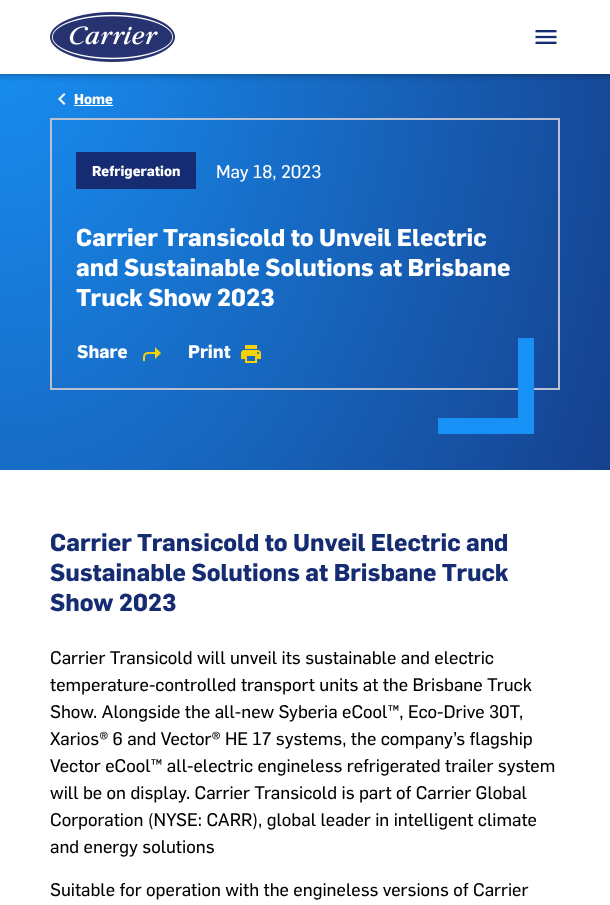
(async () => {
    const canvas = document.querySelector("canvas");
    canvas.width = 610;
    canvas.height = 905;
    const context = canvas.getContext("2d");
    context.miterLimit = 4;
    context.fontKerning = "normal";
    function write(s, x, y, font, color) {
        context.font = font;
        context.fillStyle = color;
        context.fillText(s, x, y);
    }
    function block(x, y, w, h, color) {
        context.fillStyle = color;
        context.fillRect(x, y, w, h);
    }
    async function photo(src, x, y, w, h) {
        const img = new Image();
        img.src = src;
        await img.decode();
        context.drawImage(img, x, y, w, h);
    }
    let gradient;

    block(0, 0, 610, 905, "rgb(255, 255, 255)");
    gradient = context.createRadialGradient(0, 0, 0, 0, 0, 863);
    gradient.addColorStop(0, "rgb(24, 145, 246)");
    gradient.addColorStop(1, "rgb(21, 44, 115)");
    context.fillStyle = gradient;
    context.beginPath();
    context.rect(0, 74, 610, 396);
    context.save();
    context.clip();
    context.scale(1, 1280 / 863);
    context.fillRect(0, 0, 610, 611);
    context.restore();
    context.save();
    context.beginPath();
    context.rect(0, 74, 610, 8);
    context.clip();
    context.fillStyle = "rgba(0, 0, 0, 0.5)";
    context.filter = "blur(5px)";
    context.beginPath();
    context.rect(-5, -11, 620, 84);
    context.fill();
    context.filter = "none";
    context.restore();
    await photo("media/1.png", 50, 12, 125, 50);
    await photo("media/2.png", 535, 30, 22, 14);
    await photo("media/3.png", 58, 93, 8, 12);
    write("Home", 74, 104, "bold 14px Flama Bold", "rgb(255, 255, 255)");
    block(74, 105, 39, 1, "rgb(255, 255, 255)");
    context.strokeStyle = "rgb(186, 192, 208)";
    context.lineWidth = 2;
    context.strokeRect(51, 119, 508, 270);
    block(76, 152, 120, 37, "rgb(21, 44, 115)");
    write("Refrigeration", 92, 176, "bold 14px Flama Bold", "rgb(255, 255, 255)");
    write("May 18, 2023", 216, 178, "18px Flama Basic", "rgb(255, 255, 255)");
    write("Carrier Transicold to Unveil Electric", 76, 246, "bold 24px Flama Bold", "rgb(255, 255, 255)");
    write("and Sustainable Solutions at Brisbane", 76, 276, "bold 24px Flama Bold", "rgb(255, 255, 255)");
    write("Truck Show 2023", 76, 306, "bold 24px Flama Bold", "rgb(255, 255, 255)");
    write("Share", 77, 358, "bold 18px Flama Bold", "rgb(255, 255, 255)");
    await photo("media/4.png", 143, 347, 18, 14);
    write("Print", 188, 358, "bold 18px Flama Bold", "rgb(255, 255, 255)");
    await photo("media/5.png", 241, 345, 20, 18);
    block(518, 338, 16, 80, "rgb(24, 145, 246)");
    block(438, 418, 96, 16, "rgb(24, 145, 246)");
    write("Carrier Transicold to Unveil Electric and", 50, 551, "bold 24px Flama Bold", "rgb(21, 44, 115)");
    write("Sustainable Solutions at Brisbane Truck", 50, 581, "bold 24px Flama Bold", "rgb(21, 44, 115)");
    write("Show 2023", 50, 611, "bold 24px Flama Bold", "rgb(21, 44, 115)");
    write("Carrier Transicold will unveil its sustainable and electric", 50, 664, "18px Flama Basic", "rgb(0, 0, 0)");
    write("temperature-controlled transport units at the Brisbane Truck", 50, 691, "18px Flama Basic", "rgb(0, 0, 0)");
    write("Show. Alongside the all-new Syberia eCool™, Eco-Drive 30T,", 50, 718, "18px Flama Basic", "rgb(0, 0, 0)");
    write("Xarios® 6 and Vector® HE 17 systems, the company’s flagship", 50, 745, "18px Flama Basic", "rgb(0, 0, 0)");
    write("Vector eCool™ all-electric engineless refrigerated trailer system", 50, 772, "18px Flama Basic", "rgb(0, 0, 0)");
    write("will be on display. Carrier Transicold is part of Carrier Global", 50, 799, "18px Flama Basic", "rgb(0, 0, 0)");
    write("Corporation (NYSE: CARR), global leader in intelligent climate", 50, 826, "18px Flama Basic", "rgb(0, 0, 0)");
    write("and energy solutions", 50, 853, "18px Flama Basic", "rgb(0, 0, 0)");
    write("Suitable for operation with the engineless versions of Carrier", 50, 896, "18px Flama Basic", "rgb(0, 0, 0)");
})();
